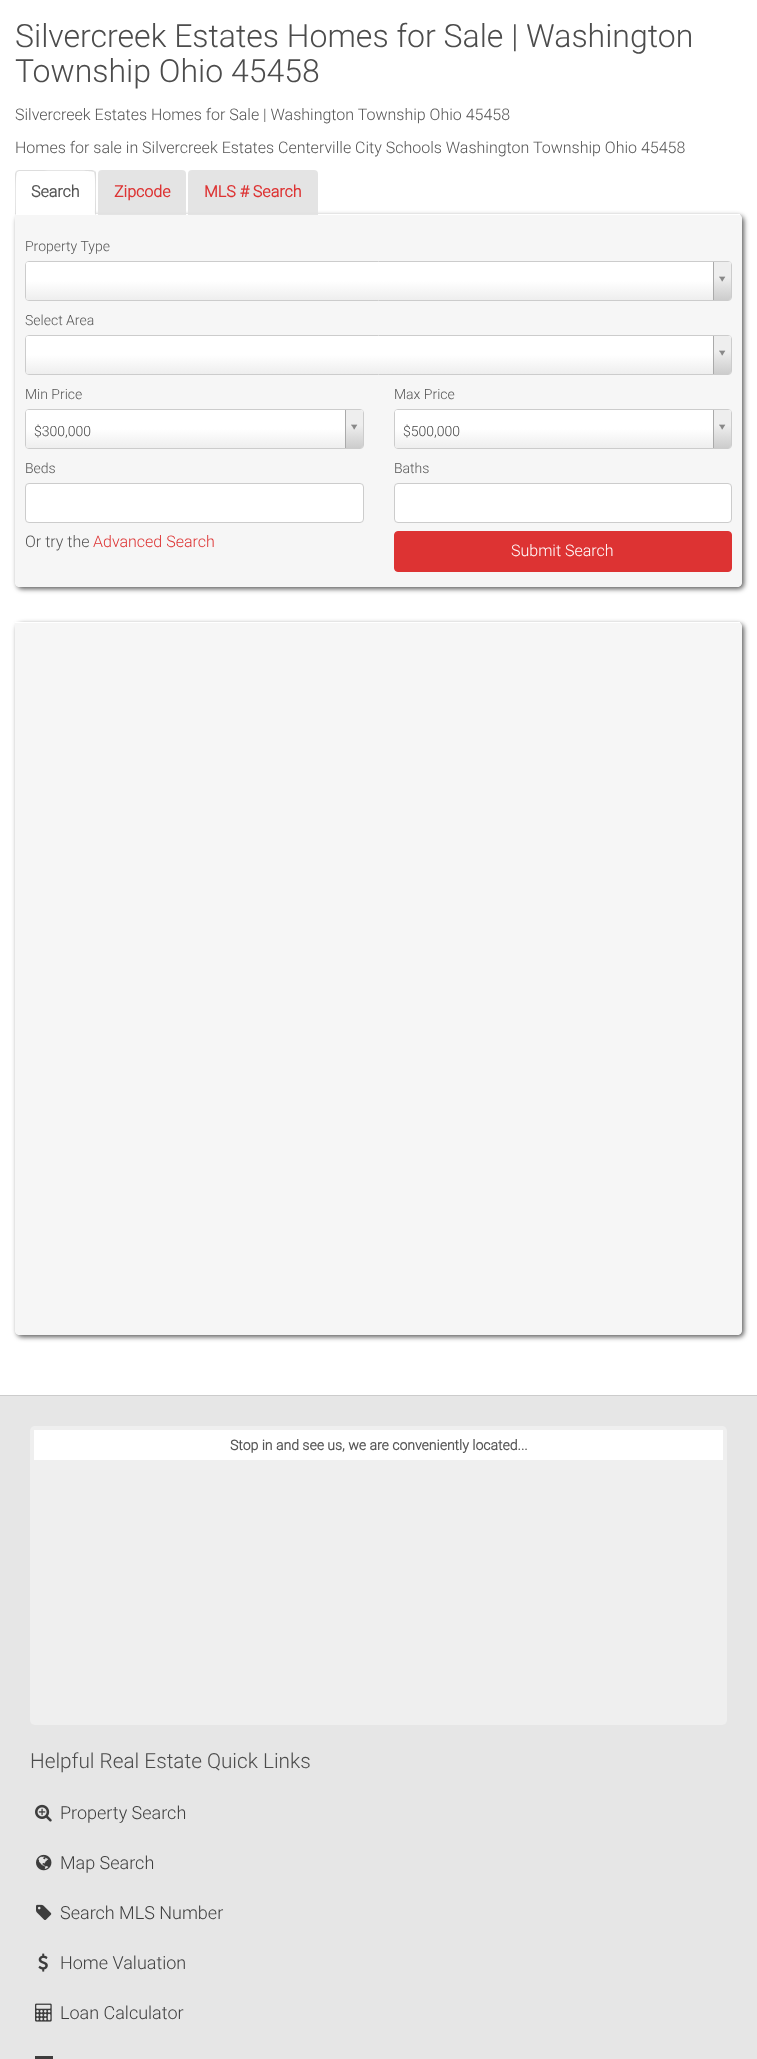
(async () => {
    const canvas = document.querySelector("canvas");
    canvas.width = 757;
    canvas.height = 2059;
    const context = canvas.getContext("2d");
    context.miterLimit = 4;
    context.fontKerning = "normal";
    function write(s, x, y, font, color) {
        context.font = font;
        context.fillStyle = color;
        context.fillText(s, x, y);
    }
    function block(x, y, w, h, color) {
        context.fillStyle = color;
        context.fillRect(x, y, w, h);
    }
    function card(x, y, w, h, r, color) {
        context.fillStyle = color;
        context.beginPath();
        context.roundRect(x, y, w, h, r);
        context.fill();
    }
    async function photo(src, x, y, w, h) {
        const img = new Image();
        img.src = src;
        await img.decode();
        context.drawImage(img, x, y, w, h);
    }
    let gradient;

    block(0, 0, 757, 2059, "rgb(255, 255, 255)");
    write("Silvercreek Estates Homes for Sale | Washington", 15, 47, "300 32px Roboto", "rgb(76, 76, 76)");
    write("Township Ohio 45458", 15, 82, "300 32px Roboto", "rgb(76, 76, 76)");
    write("Silvercreek Estates Homes for Sale | Washington Township Ohio 45458", 15, 120, "300 16px Roboto", "rgb(85, 85, 85)");
    write("Homes for sale in Silvercreek Estates Centerville City Schools Washington Township Ohio 45458", 15, 153, "300 16px Roboto", "rgb(85, 85, 85)");
    context.save();
    context.beginPath();
    context.moveTo(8, 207);
    context.lineTo(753, 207);
    context.lineTo(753, 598);
    context.lineTo(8, 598);
    context.closePath();
    context.moveTo(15, 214);
    context.lineTo(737, 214);
    context.bezierCurveTo(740, 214, 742, 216, 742, 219);
    context.lineTo(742, 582);
    context.bezierCurveTo(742, 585, 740, 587, 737, 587);
    context.lineTo(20, 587);
    context.bezierCurveTo(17, 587, 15, 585, 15, 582);
    context.closePath();
    context.clip("evenodd");
    context.fillStyle = "rgba(51, 51, 51, 0.8)";
    context.filter = "blur(2.5px)";
    context.beginPath();
    context.roundRect(17, 216, 727, 373, 5);
    context.fill();
    context.filter = "none";
    context.restore();
    context.fillStyle = "rgba(245, 245, 245, 0.85)";
    context.beginPath();
    context.roundRect(15, 214, 727, 373, [0, 5, 5, 5]);
    context.fill();
    context.fillStyle = "rgb(255, 255, 255)";
    context.beginPath();
    context.roundRect(15, 170, 81, 45, [4, 4, 0, 0]);
    context.fill();
    context.fillStyle = "rgb(221, 221, 221)";
    context.beginPath();
    context.moveTo(19, 170);
    context.lineTo(16, 171);
    context.lineTo(17, 172);
    context.lineTo(19, 171);
    context.lineTo(31, 171);
    context.bezierCurveTo(38, 171, 92, 170, 94, 172);
    context.lineTo(95, 171);
    context.lineTo(92, 170);
    context.closePath();
    context.fill();
    context.beginPath();
    context.moveTo(96, 215);
    context.lineTo(96, 174);
    context.bezierCurveTo(96, 173, 96, 172, 95, 171);
    context.lineTo(94, 172);
    context.bezierCurveTo(96, 174, 95, 209, 95, 214);
    context.closePath();
    context.fill();
    context.beginPath();
    context.moveTo(15, 215);
    context.lineTo(16, 214);
    context.bezierCurveTo(16, 209, 15, 174, 17, 172);
    context.lineTo(16, 171);
    context.lineTo(15, 174);
    context.closePath();
    context.fill();
    write("Search", 31, 197, "bold 16px Roboto", "rgb(85, 85, 85)");
    block(96, 214, 644, 1, "rgb(255, 255, 255)");
    context.fillStyle = "rgba(225, 225, 225, 0.9)";
    context.beginPath();
    context.roundRect(98, 170, 88, 45, [4, 4, 0, 0]);
    context.fill();
    write("Zipcode", 114, 197, "bold 16px Roboto", "rgb(221, 51, 51)");
    context.fillStyle = "rgba(225, 225, 225, 0.9)";
    context.beginPath();
    context.roundRect(188, 170, 130, 45, [4, 4, 0, 0]);
    context.fill();
    write("MLS # Search", 204, 197, "bold 16px Roboto", "rgb(221, 51, 51)");
    write("Property Type", 25, 251, "300 14px Roboto", "rgb(85, 85, 85)");
    context.beginPath();
    context.roundRect(25.5, 261.5, 706, 39, 3.5);
    context.strokeStyle = "rgb(204, 204, 204)";
    context.stroke();
    gradient = context.createLinearGradient(379, 300, 379, 262);
    gradient.addColorStop(0, "rgb(238, 238, 238)");
    gradient.addColorStop(0.5, "rgb(255, 255, 255)");
    context.fillStyle = gradient;
    context.beginPath();
    context.roundRect(26, 262, 705, 38, 2);
    context.fill();
    gradient = context.createLinearGradient(723, 300, 723, 262);
    gradient.addColorStop(0, "rgb(204, 204, 204)");
    gradient.addColorStop(0.6, "rgb(238, 238, 238)");
    context.fillStyle = gradient;
    context.beginPath();
    context.roundRect(713, 262, 18, 38, [0, 2, 2, 0]);
    context.fill();
    block(713, 262, 1, 38, "rgb(170, 170, 170)");
    await photo("media/1.png", 719, 276, 7, 6);
    write("Select Area", 25, 325, "300 14px Roboto", "rgb(85, 85, 85)");
    context.beginPath();
    context.roundRect(25.5, 335.5, 706, 39, 3.5);
    context.stroke();
    gradient = context.createLinearGradient(379, 374, 379, 336);
    gradient.addColorStop(0, "rgb(238, 238, 238)");
    gradient.addColorStop(0.5, "rgb(255, 255, 255)");
    context.fillStyle = gradient;
    context.beginPath();
    context.roundRect(26, 336, 705, 38, 2);
    context.fill();
    gradient = context.createLinearGradient(723, 374, 723, 336);
    gradient.addColorStop(0, "rgb(204, 204, 204)");
    gradient.addColorStop(0.6, "rgb(238, 238, 238)");
    context.fillStyle = gradient;
    context.beginPath();
    context.roundRect(713, 336, 18, 38, [0, 2, 2, 0]);
    context.fill();
    block(713, 336, 1, 38, "rgb(170, 170, 170)");
    await photo("media/1.png", 719, 350, 7, 6);
    write("Min Price", 25, 399, "300 14px Roboto", "rgb(85, 85, 85)");
    context.beginPath();
    context.roundRect(25.5, 409.5, 338, 39, 3.5);
    context.stroke();
    gradient = context.createLinearGradient(195, 448, 195, 410);
    gradient.addColorStop(0, "rgb(238, 238, 238)");
    gradient.addColorStop(0.5, "rgb(255, 255, 255)");
    context.fillStyle = gradient;
    context.beginPath();
    context.roundRect(26, 410, 337, 38, 2);
    context.fill();
    write("$300,000", 34, 436, "300 14px Roboto", "rgb(68, 68, 68)");
    gradient = context.createLinearGradient(355, 448, 355, 410);
    gradient.addColorStop(0, "rgb(204, 204, 204)");
    gradient.addColorStop(0.6, "rgb(238, 238, 238)");
    context.fillStyle = gradient;
    context.beginPath();
    context.roundRect(345, 410, 18, 38, [0, 2, 2, 0]);
    context.fill();
    block(345, 410, 1, 38, "rgb(170, 170, 170)");
    await photo("media/1.png", 351, 424, 7, 6);
    write("Max Price", 394, 399, "300 14px Roboto", "rgb(85, 85, 85)");
    context.beginPath();
    context.roundRect(394.5, 409.5, 337, 39, 3.5);
    context.stroke();
    gradient = context.createLinearGradient(563, 448, 563, 410);
    gradient.addColorStop(0, "rgb(238, 238, 238)");
    gradient.addColorStop(0.5, "rgb(255, 255, 255)");
    context.fillStyle = gradient;
    context.beginPath();
    context.roundRect(395, 410, 336, 38, 2);
    context.fill();
    write("$500,000", 403, 436, "300 14px Roboto", "rgb(68, 68, 68)");
    gradient = context.createLinearGradient(723, 448, 723, 410);
    gradient.addColorStop(0, "rgb(204, 204, 204)");
    gradient.addColorStop(0.6, "rgb(238, 238, 238)");
    context.fillStyle = gradient;
    context.beginPath();
    context.roundRect(713, 410, 18, 38, [0, 2, 2, 0]);
    context.fill();
    block(713, 410, 1, 38, "rgb(170, 170, 170)");
    await photo("media/1.png", 719, 424, 7, 6);
    write("Beds", 25, 473, "300 14px Roboto", "rgb(85, 85, 85)");
    context.fillStyle = "rgb(255, 255, 255)";
    context.beginPath();
    context.roundRect(25.5, 483.5, 338, 39, 3.5);
    context.fill();
    context.stroke();
    write("Baths", 394, 473, "300 14px Roboto", "rgb(85, 85, 85)");
    context.fillStyle = "rgb(255, 255, 255)";
    context.beginPath();
    context.roundRect(394.5, 483.5, 337, 39, 3.5);
    context.fill();
    context.stroke();
    write("Or try the", 25, 547, "300 16px Roboto", "rgb(85, 85, 85)");
    write("Advanced Search", 93, 547, "300 16px Roboto", "rgb(221, 51, 51)");
    context.beginPath();
    context.roundRect(394.5, 531.5, 337, 40, 3.5);
    context.fill();
    context.strokeStyle = "rgb(221, 51, 51)";
    context.stroke();
    write("Submit Search", 511, 556, "300 16px Roboto", "rgb(255, 255, 255)");
    context.save();
    context.beginPath();
    context.moveTo(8, 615);
    context.lineTo(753, 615);
    context.lineTo(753, 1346);
    context.lineTo(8, 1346);
    context.closePath();
    context.moveTo(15, 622);
    context.lineTo(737, 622);
    context.bezierCurveTo(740, 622, 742, 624, 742, 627);
    context.lineTo(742, 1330);
    context.bezierCurveTo(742, 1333, 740, 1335, 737, 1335);
    context.lineTo(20, 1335);
    context.bezierCurveTo(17, 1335, 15, 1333, 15, 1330);
    context.closePath();
    context.clip("evenodd");
    context.fillStyle = "rgba(51, 51, 51, 0.8)";
    context.filter = "blur(2.5px)";
    context.beginPath();
    context.roundRect(17, 624, 727, 713, 5);
    context.fill();
    context.filter = "none";
    context.restore();
    context.fillStyle = "rgba(245, 245, 245, 0.85)";
    context.beginPath();
    context.roundRect(15, 622, 727, 713, [0, 5, 5, 5]);
    context.fill();
    block(15, 622, 725, 1, "rgb(255, 255, 255)");
    block(0, 1396, 757, 663, "rgb(230, 230, 230)");
    block(0, 1395, 757, 1, "rgb(204, 204, 204)");
    card(30, 1426, 697, 299, 5, "rgb(239, 239, 239)");
    block(34, 1430, 689, 30, "rgb(255, 255, 255)");
    write("Stop in and see us, we are conveniently located...", 230, 1450, "bold 14px Roboto", "rgb(85, 85, 85)");
    write("Helpful Real Estate Quick Links", 30, 1768, "300 20.75px Roboto", "rgb(76, 76, 76)");
    await photo("media/2.png", 35, 1804, 17, 18);
    write("Property Search", 60, 1819, "300 18px Roboto", "rgb(61, 61, 61)");
    await photo("media/3.png", 36, 1854, 16, 17);
    write("Map Search", 60, 1869, "300 18px Roboto", "rgb(61, 61, 61)");
    await photo("media/4.png", 36, 1904, 16, 16);
    write("Search MLS Number", 60, 1919, "300 18px Roboto", "rgb(61, 61, 61)");
    await photo("media/5.png", 38, 1953, 10, 19);
    write("Home Valuation", 60, 1969, "300 18px Roboto", "rgb(61, 61, 61)");
    await photo("media/6.png", 35, 2003, 17, 19);
    write("Loan Calculator", 60, 2019, "300 18px Roboto", "rgb(61, 61, 61)");
    block(35, 2056, 18, 3, "rgb(61, 61, 61)");
})();
